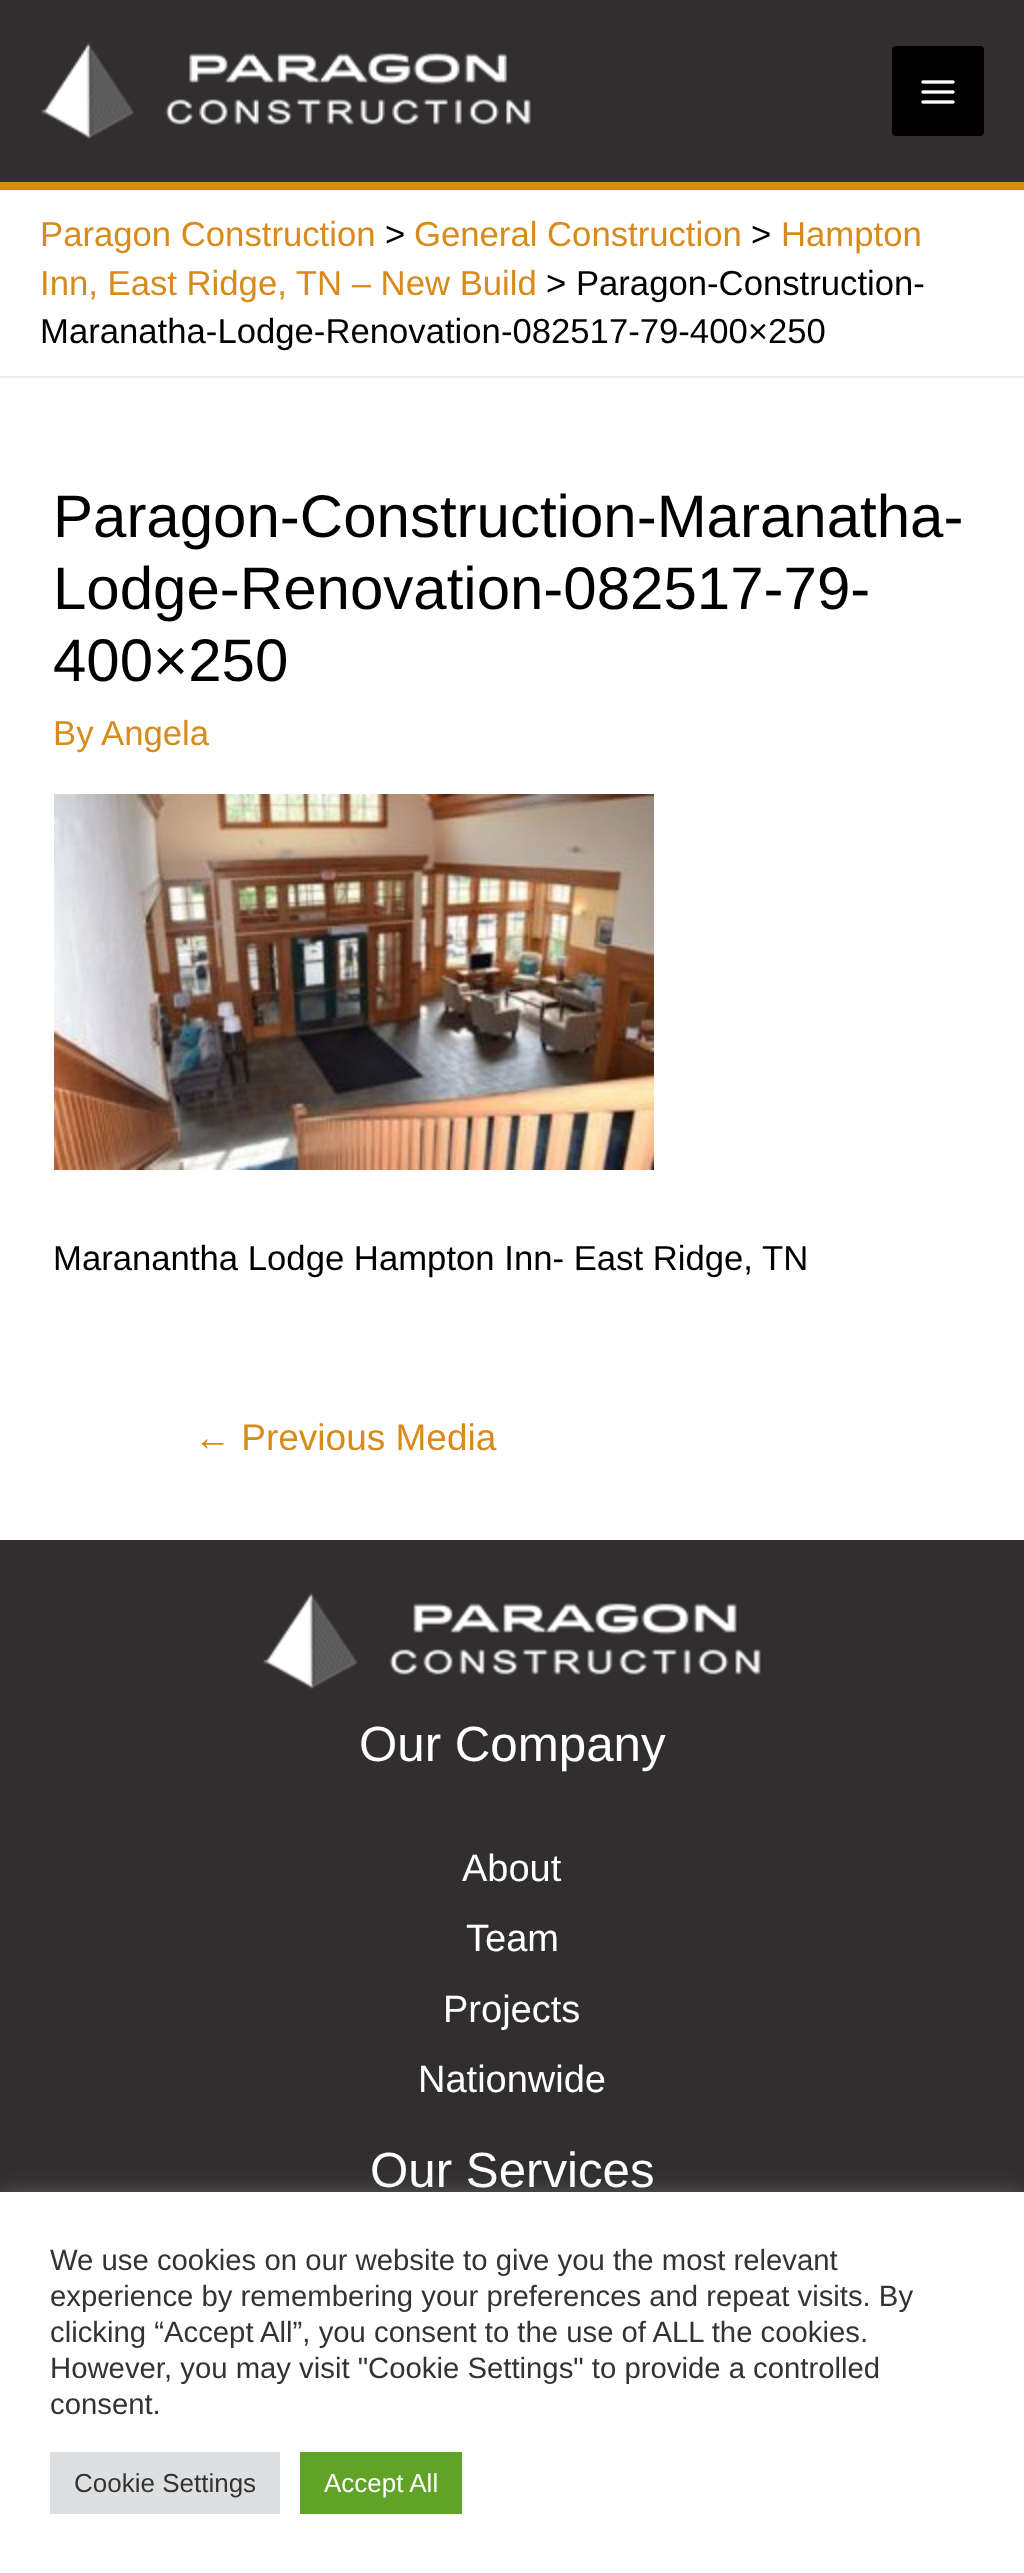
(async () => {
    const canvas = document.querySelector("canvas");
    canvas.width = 1024;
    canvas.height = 2573;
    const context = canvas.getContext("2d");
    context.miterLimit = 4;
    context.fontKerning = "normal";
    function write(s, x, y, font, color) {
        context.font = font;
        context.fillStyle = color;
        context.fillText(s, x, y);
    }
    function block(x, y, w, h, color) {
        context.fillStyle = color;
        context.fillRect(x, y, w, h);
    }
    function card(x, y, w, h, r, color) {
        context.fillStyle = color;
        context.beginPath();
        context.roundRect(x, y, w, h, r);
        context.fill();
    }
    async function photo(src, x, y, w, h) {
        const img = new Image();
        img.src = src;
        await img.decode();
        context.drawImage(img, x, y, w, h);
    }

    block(0, 0, 1024, 2573, "rgb(255, 255, 255)");
    block(0, 0, 1024, 182, "rgb(48, 46, 46)");
    block(0, 182, 1024, 8, "rgb(216, 138, 27)");
    await photo("media/1.png", 41, 42, 490, 97);
    card(892, 46, 92, 90, 4, "rgb(0, 0, 0)");
    await photo("media/2.png", 921, 80, 34, 24);
    block(0, 376, 1024, 2, "rgb(234, 234, 234)");
    write("Paragon Construction", 40, 246, "34.7px Liberation Sans", "rgb(216, 138, 27)");
    write(">", 385, 246, "34.7px Liberation Sans", "rgb(0, 0, 0)");
    write("General Construction", 414, 246, "34.7px Liberation Sans", "rgb(216, 138, 27)");
    write(">", 751, 246, "34.7px Liberation Sans", "rgb(0, 0, 0)");
    write("Hampton", 781, 246, "34.7px Liberation Sans", "rgb(216, 138, 27)");
    write("Inn, East Ridge, TN – New Build", 40, 295, "34.7px Liberation Sans", "rgb(216, 138, 27)");
    write("> Paragon-Construction-", 546, 295, "34.7px Liberation Sans", "rgb(0, 0, 0)");
    write("Maranatha-Lodge-Renovation-082517-79-400×250", 40, 343, "34.7px Liberation Sans", "rgb(0, 0, 0)");
    write("Paragon-Construction-Maranatha-", 53, 537, "60px Liberation Sans", "rgb(0, 0, 0)");
    write("Lodge-Renovation-082517-79-", 53, 609, "60px Liberation Sans", "rgb(0, 0, 0)");
    write("400×250", 53, 681, "60px Liberation Sans", "rgb(0, 0, 0)");
    write("By", 53, 745, "34.7px Liberation Sans", "rgb(216, 138, 27)");
    write("Angela", 101, 745, "34.7px Liberation Sans", "rgb(216, 138, 27)");
    await photo("media/3.png", 54, 794, 600, 376);
    write("Maranantha Lodge Hampton Inn- East Ridge, TN", 53, 1270, "34.7px Liberation Sans", "rgb(0, 0, 0)");
    write("← Previous Media", 194, 1450, "37px Liberation Sans", "rgb(216, 138, 27)");
    block(0, 1540, 1024, 652, "rgb(48, 46, 46)");
    await photo("media/4.png", 263, 1592, 498, 97);
    write("Our Company", 359, 1761, "49.25px Liberation Sans", "rgb(255, 255, 255)");
    write("About", 462, 1881, "38px Liberation Sans", "rgb(255, 255, 255)");
    write("Team", 466, 1951, "38px Liberation Sans", "rgb(255, 255, 255)");
    write("Projects", 443, 2022, "38px Liberation Sans", "rgb(255, 255, 255)");
    write("Nationwide", 418, 2092, "38px Liberation Sans", "rgb(255, 255, 255)");
    write("Our Services", 370, 2187, "49.25px Liberation Sans", "rgb(255, 255, 255)");
    context.fillStyle = "rgba(172, 171, 171, 0.3)";
    context.filter = "blur(10px)";
    context.beginPath();
    context.rect(0, 2190, 1024, 382);
    context.fill();
    context.filter = "none";
    block(0, 2192, 1024, 381, "rgb(255, 255, 255)");
    write("We use cookies on our website to give you the most relevant", 50, 2270, "29.3px Liberation Sans", "rgb(51, 51, 51)");
    write("experience by remembering your preferences and repeat visits. By", 50, 2306, "29.3px Liberation Sans", "rgb(51, 51, 51)");
    write("clicking “Accept All”, you consent to the use of ALL the cookies.", 50, 2342, "29.3px Liberation Sans", "rgb(51, 51, 51)");
    write("However, you may visit \"Cookie Settings\" to provide a controlled", 50, 2378, "29.3px Liberation Sans", "rgb(51, 51, 51)");
    write("consent.", 50, 2414, "29.3px Liberation Sans", "rgb(51, 51, 51)");
    block(50, 2452, 230, 62, "rgb(222, 223, 224)");
    write("Cookie Settings", 74, 2492, "26px Liberation Sans", "rgb(51, 51, 51)");
    block(300, 2452, 162, 62, "rgb(97, 162, 41)");
    write("Accept All", 324, 2492, "26px Liberation Sans", "rgb(255, 255, 255)");
})();
